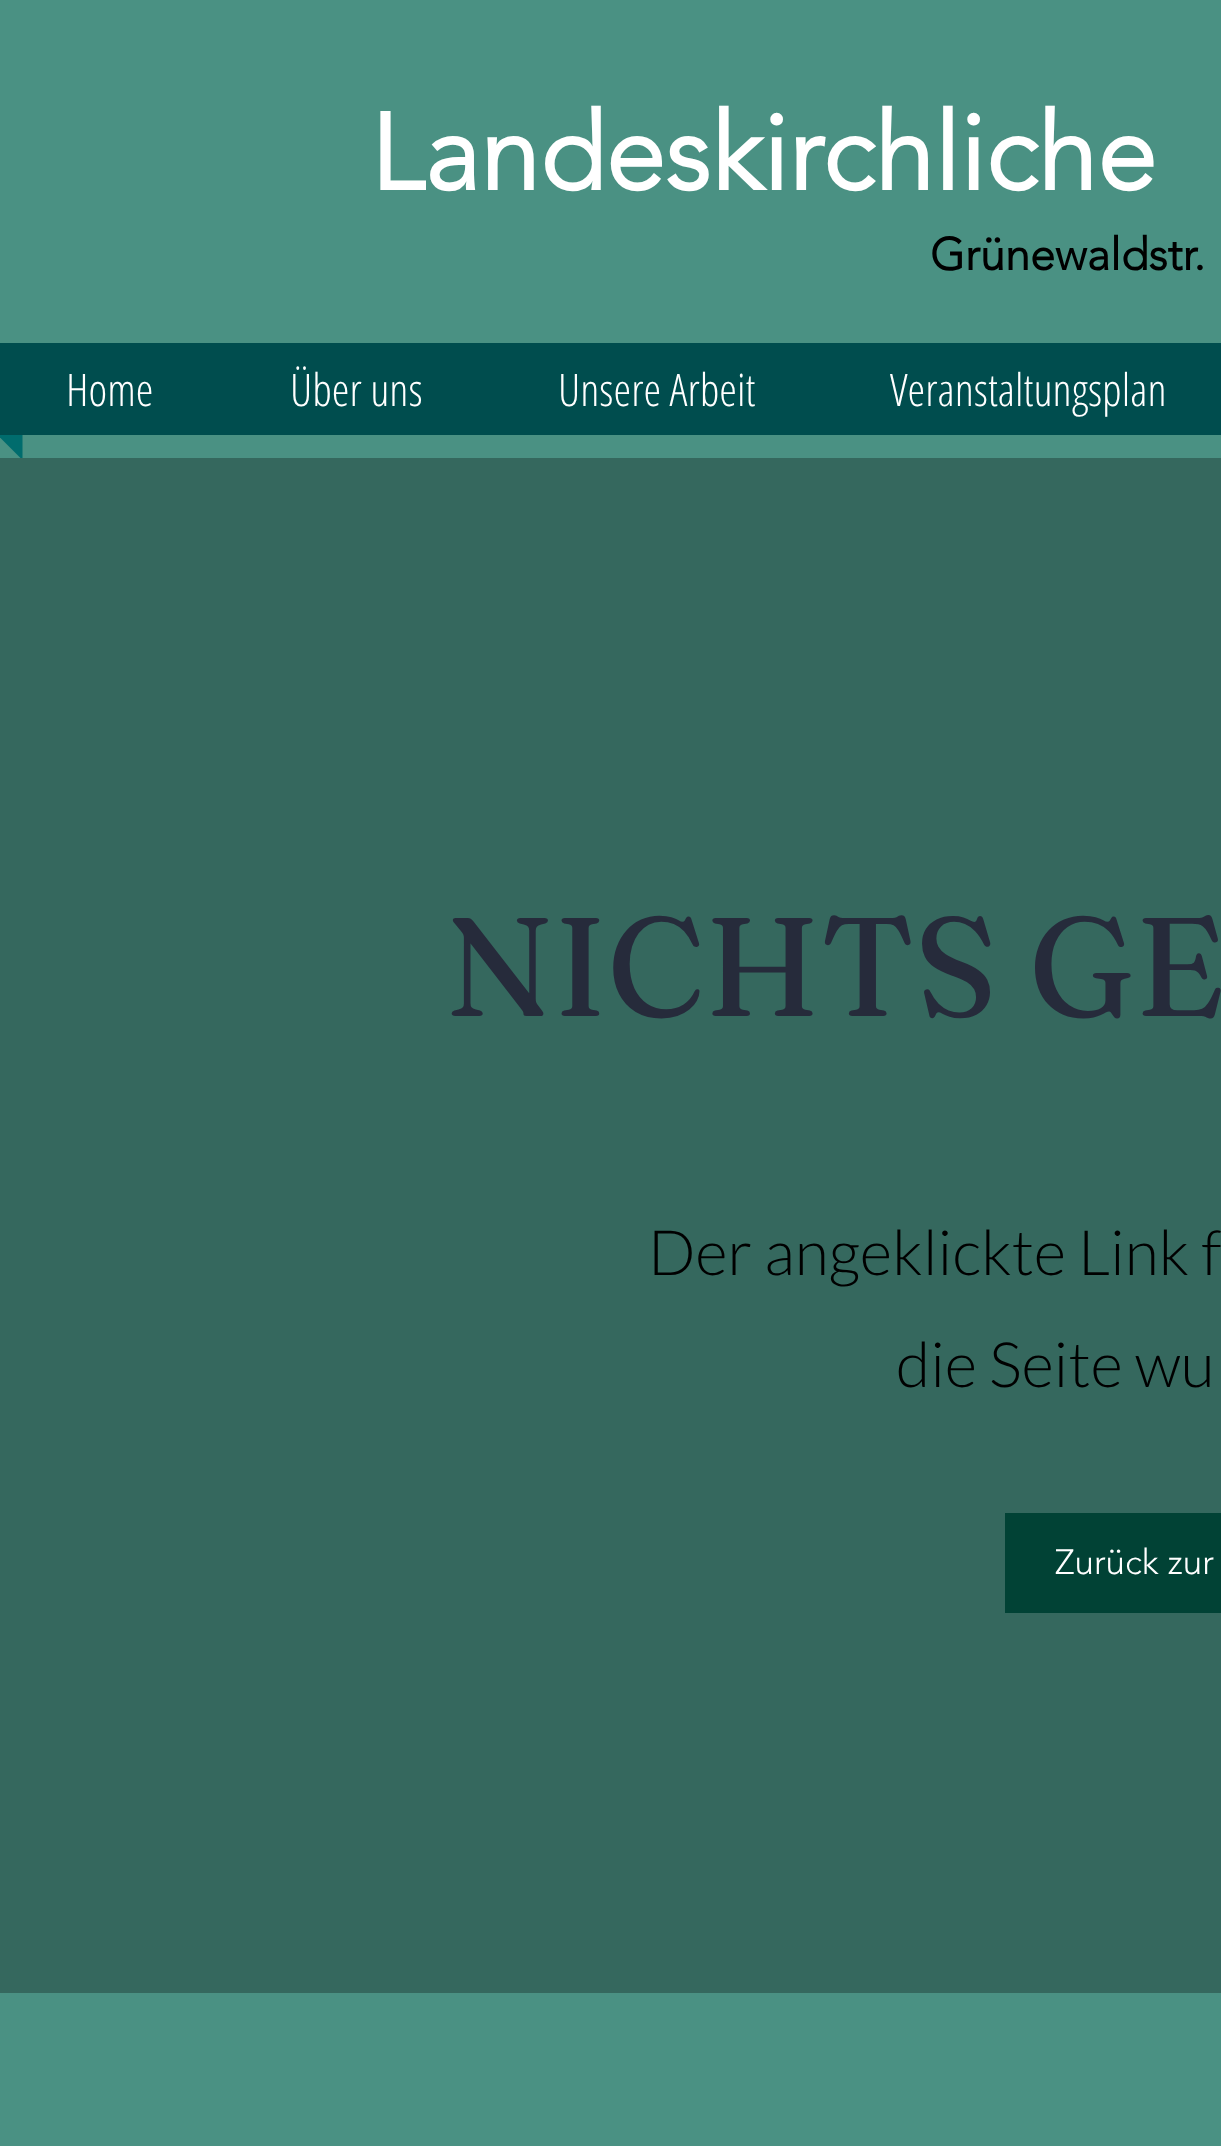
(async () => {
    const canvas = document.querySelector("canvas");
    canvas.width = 1221;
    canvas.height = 2146;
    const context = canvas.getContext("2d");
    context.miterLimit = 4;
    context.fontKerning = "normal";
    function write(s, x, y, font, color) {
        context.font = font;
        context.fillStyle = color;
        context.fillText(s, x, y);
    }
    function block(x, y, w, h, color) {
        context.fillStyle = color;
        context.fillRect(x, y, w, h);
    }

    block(0, 0, 1221, 2146, "rgb(74, 145, 131)");
    write("Landeskirchliche", 370, 190, "bold 107.5px 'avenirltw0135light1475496'", "rgb(255, 255, 255)");
    write("Grünewaldstr.", 930, 270, "bold 45px 'avenirltw0135light1475496'", "rgb(0, 0, 0)");
    block(0, 343, 1221, 92, "rgb(0, 77, 78)");
    write("Home", 66, 406, "300 45px Open Sans Condensed", "rgb(255, 255, 255)");
    write("Über uns", 290, 406, "300 45px Open Sans Condensed", "rgb(255, 255, 255)");
    write("Unsere Arbeit", 558, 406, "300 45px Open Sans Condensed", "rgb(255, 255, 255)");
    write("Veranstaltungsplan", 890, 406, "300 45px Open Sans Condensed", "rgb(255, 255, 255)");
    context.fillStyle = "rgb(0, 108, 109)";
    context.beginPath();
    context.moveTo(-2.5, 435);
    context.lineTo(22.5, 435);
    context.lineTo(22.5, 460);
    context.closePath();
    context.fill();
    block(0, 458, 1221, 1535, "rgb(53, 104, 94)");
    write("NICHTS GE", 445, 1016, "140px Fraunces", "rgb(38, 43, 59)");
    write("Der angeklickte Link f", 648, 1275, "300 62.5px Lato", "rgb(0, 0, 0)");
    write("die Seite wu", 896, 1387, "300 62.5px Lato", "rgb(0, 0, 0)");
    block(1005, 1513, 216, 100, "rgb(1, 66, 53)");
    write("Zurück zur", 1055, 1574, "300 35px 'avenirltw0135light1475496'", "rgb(255, 255, 255)");
})();
